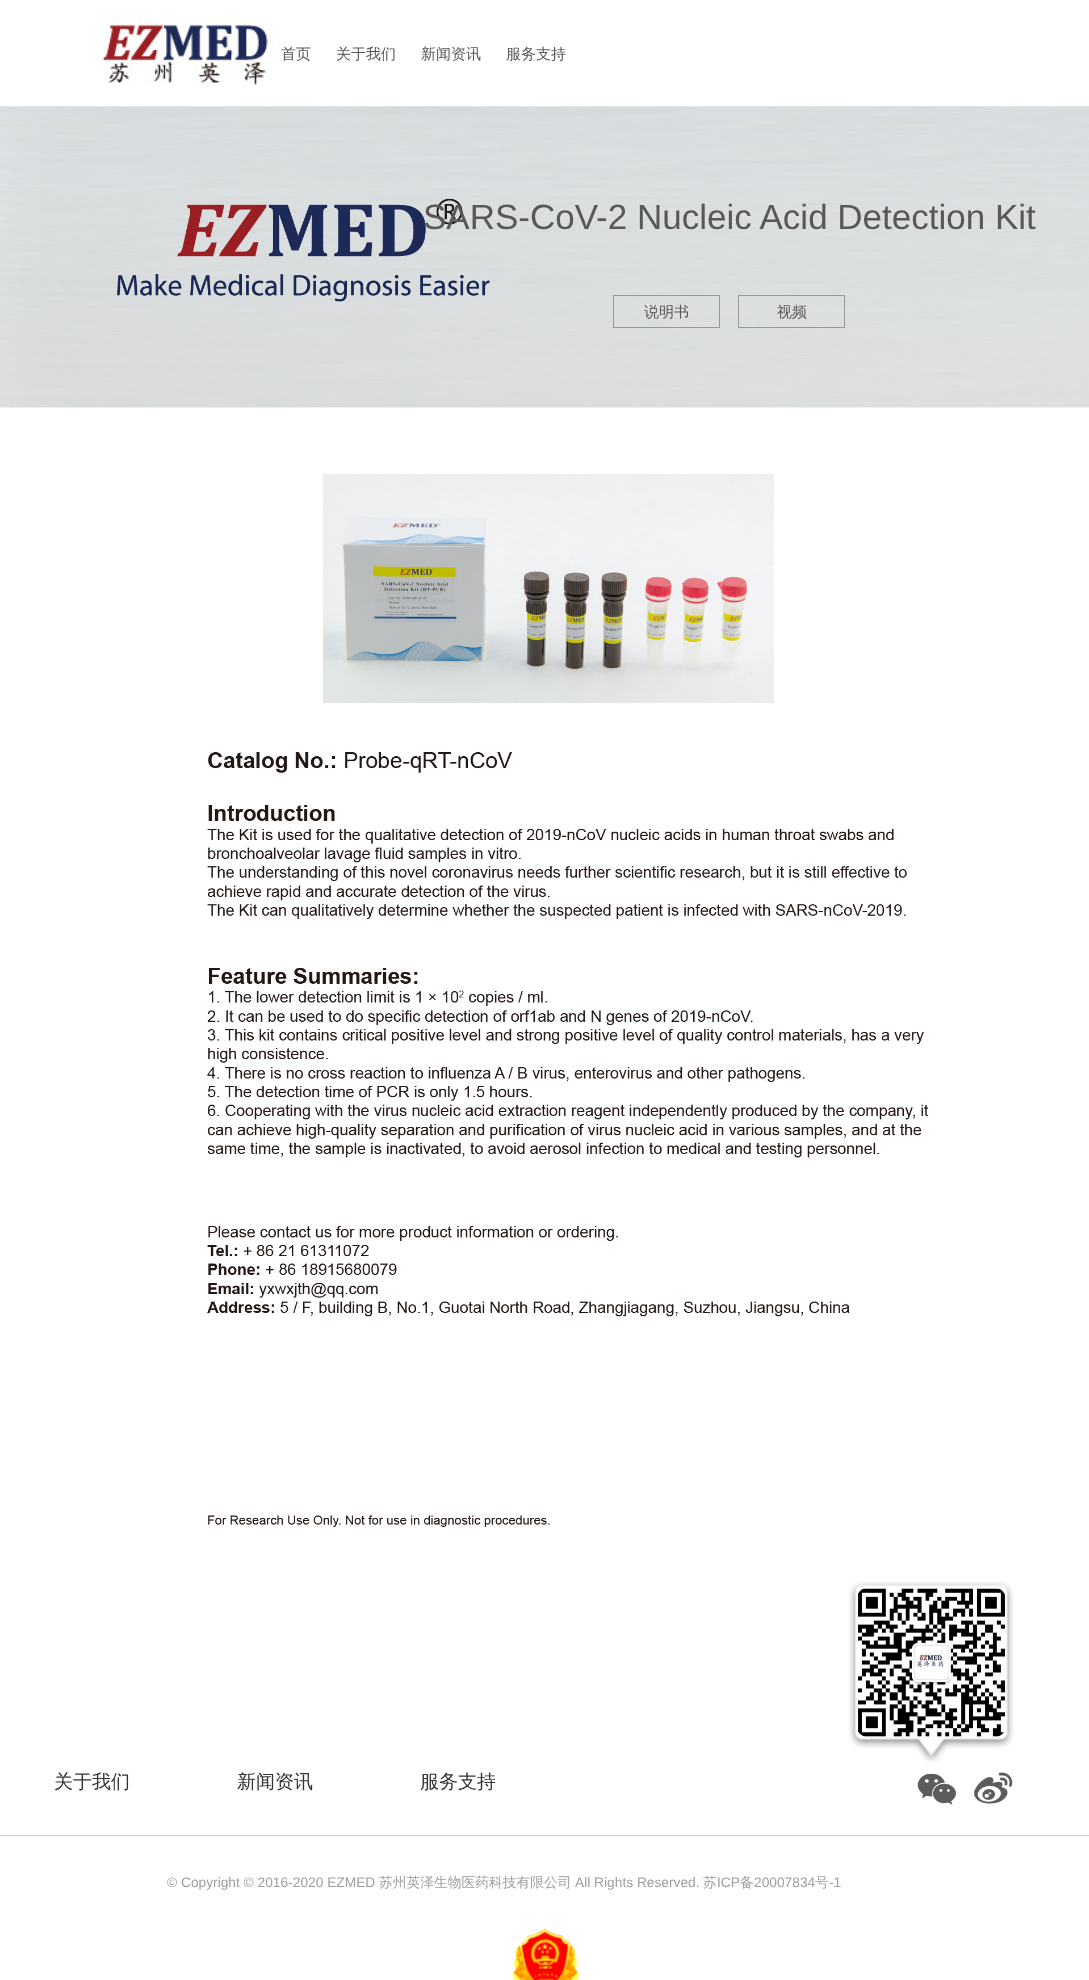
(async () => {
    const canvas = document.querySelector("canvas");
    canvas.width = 1089;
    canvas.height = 1980;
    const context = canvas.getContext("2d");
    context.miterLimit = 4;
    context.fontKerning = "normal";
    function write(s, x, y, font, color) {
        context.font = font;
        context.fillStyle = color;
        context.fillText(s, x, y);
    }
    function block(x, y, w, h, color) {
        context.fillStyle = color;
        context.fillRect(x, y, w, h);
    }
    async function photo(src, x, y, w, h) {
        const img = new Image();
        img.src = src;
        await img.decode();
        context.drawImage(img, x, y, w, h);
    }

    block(0, 0, 1089, 1980, "rgb(255, 255, 255)");
    await photo("media/1.png", 95, 22, 180, 63);
    write("首页", 281, 59, "500 15px WenQuanYi Zen Hei", "rgb(89, 87, 87)");
    write("关于我们", 336, 59, "500 15px WenQuanYi Zen Hei", "rgb(89, 87, 87)");
    write("新闻资讯", 421, 59, "500 15px WenQuanYi Zen Hei", "rgb(89, 87, 87)");
    write("服务支持", 506, 59, "500 15px WenQuanYi Zen Hei", "rgb(89, 87, 87)");
    await photo("media/2.png", 0, 106, 1089, 302);
    write("SARS-CoV-2 Nucleic Acid Detection Kit", 423, 229, "35px Liberation Sans", "rgb(89, 87, 87)");
    context.strokeStyle = "rgb(153, 153, 153)";
    context.strokeRect(613.5, 295.5, 106, 32);
    write("说明书", 644, 317, "500 15px WenQuanYi Zen Hei", "rgb(89, 87, 87)");
    context.strokeRect(738.5, 295.5, 106, 32);
    write("视频", 777, 317, "500 15px WenQuanYi Zen Hei", "rgb(89, 87, 87)");
    await photo("media/3.png", 207, 474, 721, 1053);
    block(0, 1835, 1089, 1, "rgb(208, 209, 209)");
    write("关于我们", 54, 1788, "500 19px WenQuanYi Zen Hei", "rgb(51, 51, 51)");
    write("新闻资讯", 237, 1788, "500 19px WenQuanYi Zen Hei", "rgb(51, 51, 51)");
    write("服务支持", 420, 1788, "500 19px WenQuanYi Zen Hei", "rgb(51, 51, 51)");
    await photo("media/4.png", 849, 1581, 165, 182);
    await photo("media/5.png", 858, 1588, 147, 149);
    await photo("media/6.png", 917, 1773, 40, 32);
    await photo("media/7.png", 973, 1772, 40, 32);
    write("© Copyright © 2016-2020 EZMED", 167, 1887, "13.75px Liberation Sans", "rgb(157, 158, 158)");
    write("苏州英泽生物医药科技有限公司", 379, 1887, "500 13.75px WenQuanYi Zen Hei", "rgb(157, 158, 158)");
    write("All Rights Reserved.", 575, 1887, "13.75px Liberation Sans", "rgb(157, 158, 158)");
    write("苏", 703, 1887, "500 13.75px WenQuanYi Zen Hei", "rgb(157, 158, 158)");
    write("ICP", 717, 1887, "13.75px Liberation Sans", "rgb(157, 158, 158)");
    write("备", 740, 1887, "500 13.75px WenQuanYi Zen Hei", "rgb(157, 158, 158)");
    write("20007834", 754, 1887, "13.75px Liberation Sans", "rgb(157, 158, 158)");
    write("号", 815, 1887, "500 13.75px WenQuanYi Zen Hei", "rgb(157, 158, 158)");
    write("-1", 829, 1887, "13.75px Liberation Sans", "rgb(157, 158, 158)");
    await photo("media/8.png", 512, 1928, 67, 52);
})();
